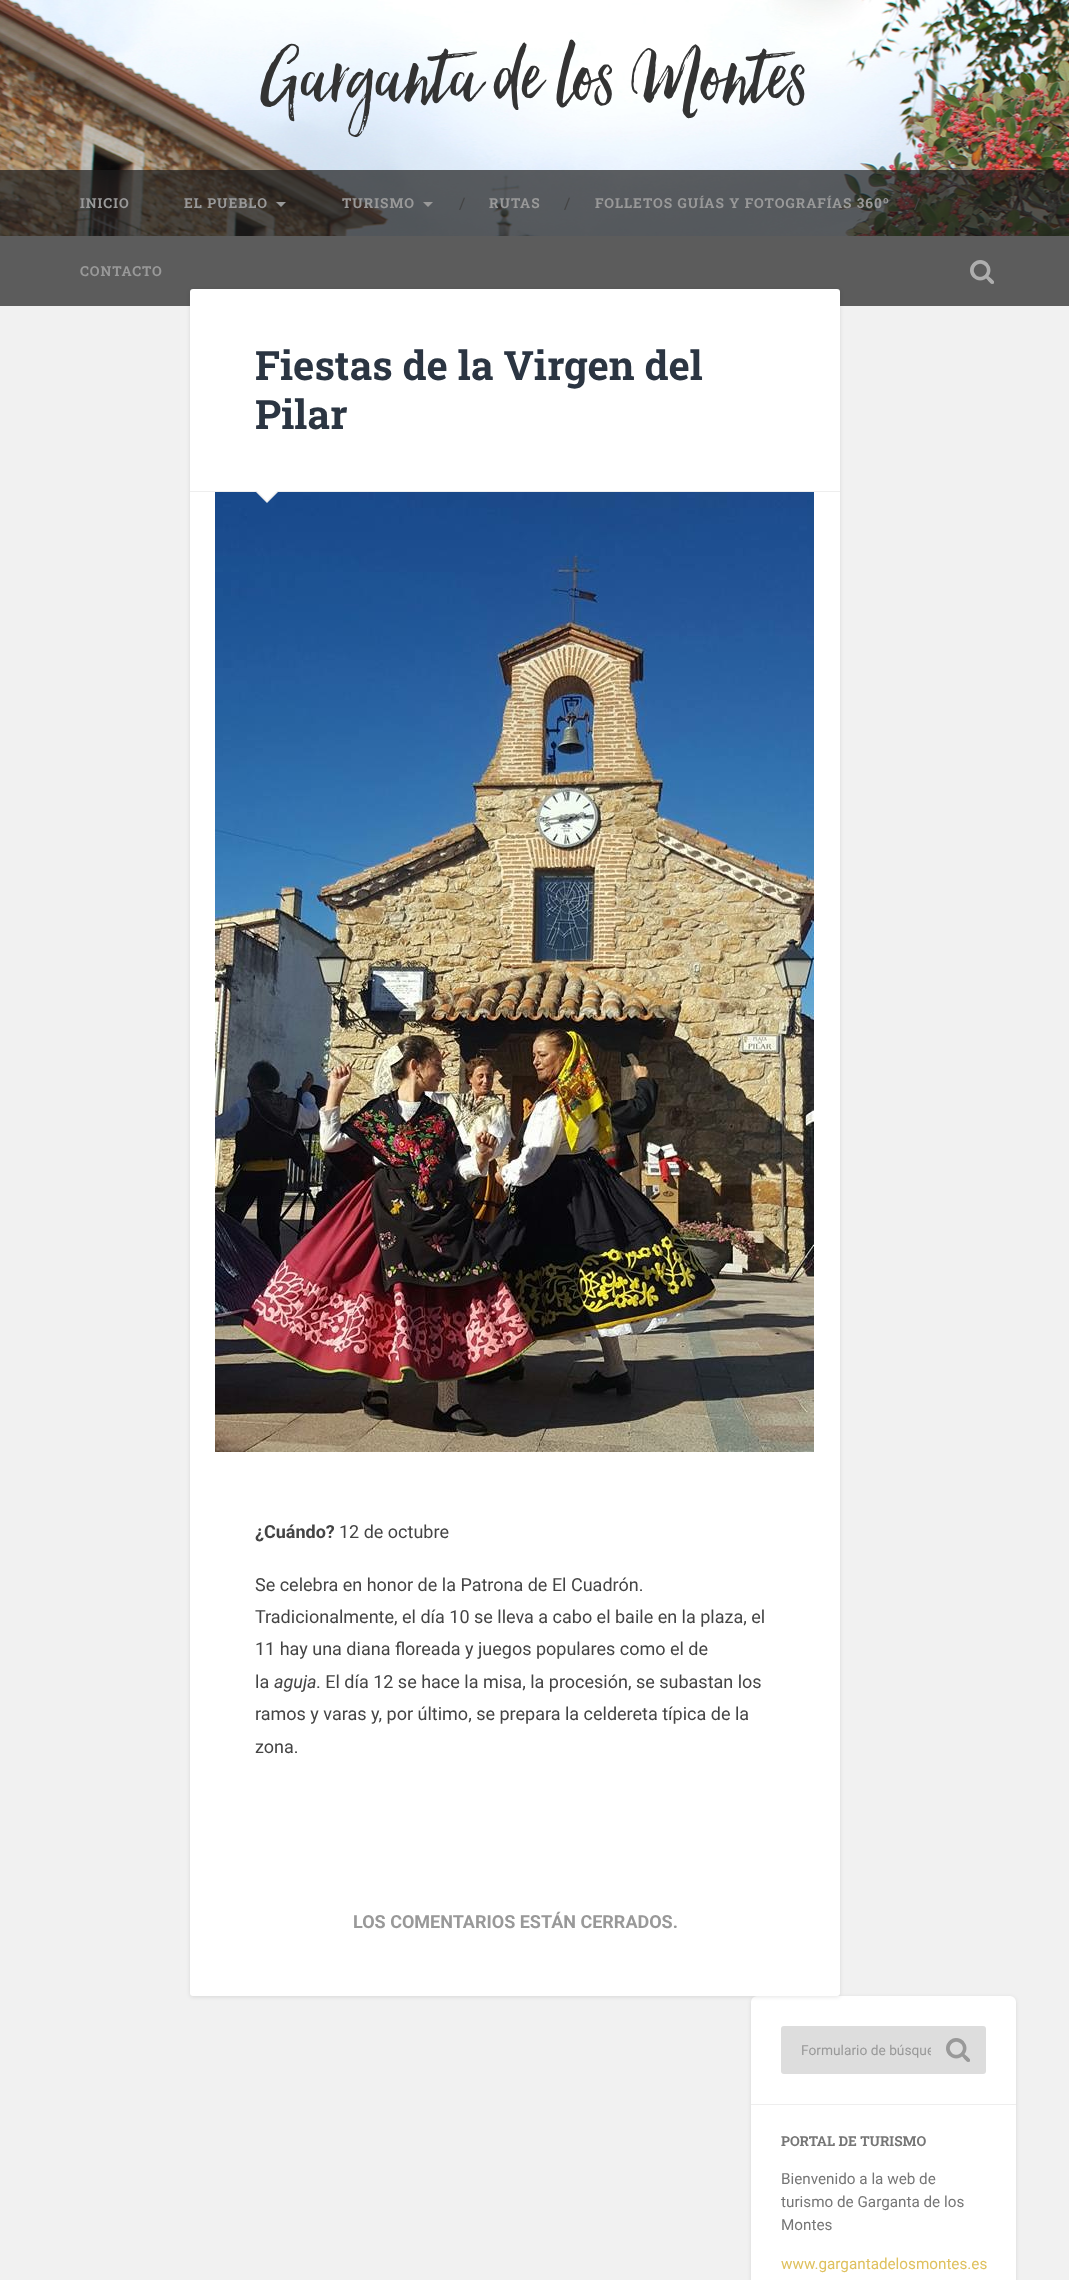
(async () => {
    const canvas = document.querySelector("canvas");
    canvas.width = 1069;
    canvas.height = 2280;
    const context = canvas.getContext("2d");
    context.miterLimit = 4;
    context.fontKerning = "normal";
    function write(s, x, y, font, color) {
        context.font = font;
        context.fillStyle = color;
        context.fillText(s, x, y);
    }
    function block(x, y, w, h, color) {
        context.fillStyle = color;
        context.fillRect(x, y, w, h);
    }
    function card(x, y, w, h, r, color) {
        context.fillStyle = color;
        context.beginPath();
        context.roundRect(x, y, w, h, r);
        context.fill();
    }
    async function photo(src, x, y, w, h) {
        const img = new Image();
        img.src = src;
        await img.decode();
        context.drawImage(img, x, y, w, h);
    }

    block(0, 0, 1069, 2280, "rgb(241, 241, 241)");
    await photo("media/1.png", 0, 0, 1069, 236);
    write("Garganta de los Montes", 262, 102, "100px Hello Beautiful", "rgb(51, 51, 51)");
    block(0, 170, 1069, 136, "rgba(29, 29, 29, 0.7)");
    context.letterSpacing = "1px";
    write("INICIO", 80, 208, "bold 13.75px Roboto Slab", "rgb(153, 153, 153)");
    write("EL PUEBLO", 184, 208, "bold 13.75px Roboto Slab", "rgb(153, 153, 153)");
    context.beginPath();
    context.moveTo(276, 202);
    context.lineTo(286, 202);
    context.lineTo(281, 207);
    context.closePath();
    context.fill();
    write("TURISMO", 342, 208, "bold 13.75px Roboto Slab", "rgb(153, 153, 153)");
    context.beginPath();
    context.moveTo(423, 202);
    context.lineTo(433, 202);
    context.lineTo(428, 207);
    context.closePath();
    context.fill();
    context.letterSpacing = "0px";
    write("/", 459, 209, "16px Roboto Slab", "rgb(68, 68, 68)");
    context.letterSpacing = "1px";
    write("RUTAS", 489, 208, "bold 13.75px Roboto Slab", "rgb(153, 153, 153)");
    context.letterSpacing = "0px";
    write("/", 564, 209, "16px Roboto Slab", "rgb(68, 68, 68)");
    context.letterSpacing = "1px";
    write("FOLLETOS GUÍAS Y FOTOGRAFÍAS 360º", 595, 208, "bold 13.75px Roboto Slab", "rgb(153, 153, 153)");
    context.letterSpacing = "0px";
    write("/", 914, 209, "16px Roboto Slab", "rgb(68, 68, 68)");
    context.letterSpacing = "1px";
    write("CONTACTO", 80, 276, "bold 13.75px Roboto Slab", "rgb(153, 153, 153)");
    await photo("media/2.png", 970, 260, 24, 24);
    context.fillStyle = "rgba(0, 0, 0, 0.1)";
    context.filter = "blur(2px)";
    context.beginPath();
    context.roundRect(751, 1997, 265, 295, 6);
    context.fill();
    context.filter = "none";
    card(751, 1996, 265, 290, 6, "rgb(255, 255, 255)");
    context.fillStyle = "rgba(0, 0, 0, 0.1)";
    context.filter = "blur(2px)";
    context.beginPath();
    context.roundRect(190, 290, 650, 1707, 3);
    context.fill();
    context.filter = "none";
    card(190, 289, 650, 1707, 3, "rgb(255, 255, 255)");
    block(190, 491, 650, 1, "rgb(238, 238, 238)");
    context.letterSpacing = "0px";
    write("Fiestas de la Virgen del", 255, 380, "bold 40.5px Roboto Slab", "rgb(43, 53, 66)");
    write("Pilar", 255, 429, "bold 40.5px Roboto Slab", "rgb(43, 53, 66)");
    await photo("media/3.png", 215, 492, 599, 960);
    context.fillStyle = "rgb(238, 238, 238)";
    context.beginPath();
    context.moveTo(255, 491);
    context.lineTo(279, 491);
    context.lineTo(267, 503);
    context.closePath();
    context.fill();
    context.fillStyle = "rgb(255, 255, 255)";
    context.beginPath();
    context.moveTo(256, 490);
    context.lineTo(278, 490);
    context.lineTo(267, 501);
    context.closePath();
    context.fill();
    write("¿Cuándo?", 255, 1538, "bold 18px Roboto", "rgb(68, 68, 68)");
    write("12 de octubre", 339, 1538, "18px Roboto", "rgb(68, 68, 68)");
    write("Se celebra en honor de la Patrona de El Cuadrón.", 255, 1591, "18px Roboto", "rgb(68, 68, 68)");
    write("Tradicionalmente, el día 10 se lleva a cabo el baile en la plaza, el", 255, 1623, "18px Roboto", "rgb(68, 68, 68)");
    write("11 hay una diana floreada y juegos populares como el de", 255, 1655, "18px Roboto", "rgb(68, 68, 68)");
    write("la", 255, 1688, "18px Roboto", "rgb(68, 68, 68)");
    write("aguja", 274, 1688, "italic 18px Roboto", "rgb(68, 68, 68)");
    write(". El día 12 se hace la misa, la procesión, se subastan los", 316, 1688, "18px Roboto", "rgb(68, 68, 68)");
    write("ramos y varas y, por último, se prepara la celdereta típica de la", 255, 1720, "18px Roboto", "rgb(68, 68, 68)");
    write("zona.", 255, 1753, "18px Roboto", "rgb(68, 68, 68)");
    write("LOS COMENTARIOS ESTÁN CERRADOS.", 353, 1928, "bold 18px Roboto", "rgb(153, 153, 153)");
    card(781, 2026, 205, 48, 3, "rgb(221, 221, 221)");
    context.save();
    context.beginPath();
    context.rect(801, 2042, 130, 16);
    context.clip();
    write("Formulario de búsque", 801, 2055, "13.75px Roboto", "rgb(153, 153, 153)");
    context.restore();
    await photo("media/4.png", 946, 2038, 24, 24);
    block(751, 2104, 265, 1, "rgb(238, 238, 238)");
    write("PORTAL DE TURISMO", 781, 2146, "bold 13.75px Roboto Slab", "rgb(118, 118, 118)");
    write("Bienvenido a la web de", 781, 2184, "15.25px Roboto", "rgb(118, 118, 118)");
    write("turismo de Garganta de los", 781, 2207, "15.25px Roboto", "rgb(118, 118, 118)");
    write("Montes", 781, 2230, "15.25px Roboto", "rgb(118, 118, 118)");
    write("www.gargantadelosmontes.es", 781, 2269, "15.25px Roboto", "rgb(223, 193, 94)");
})();
